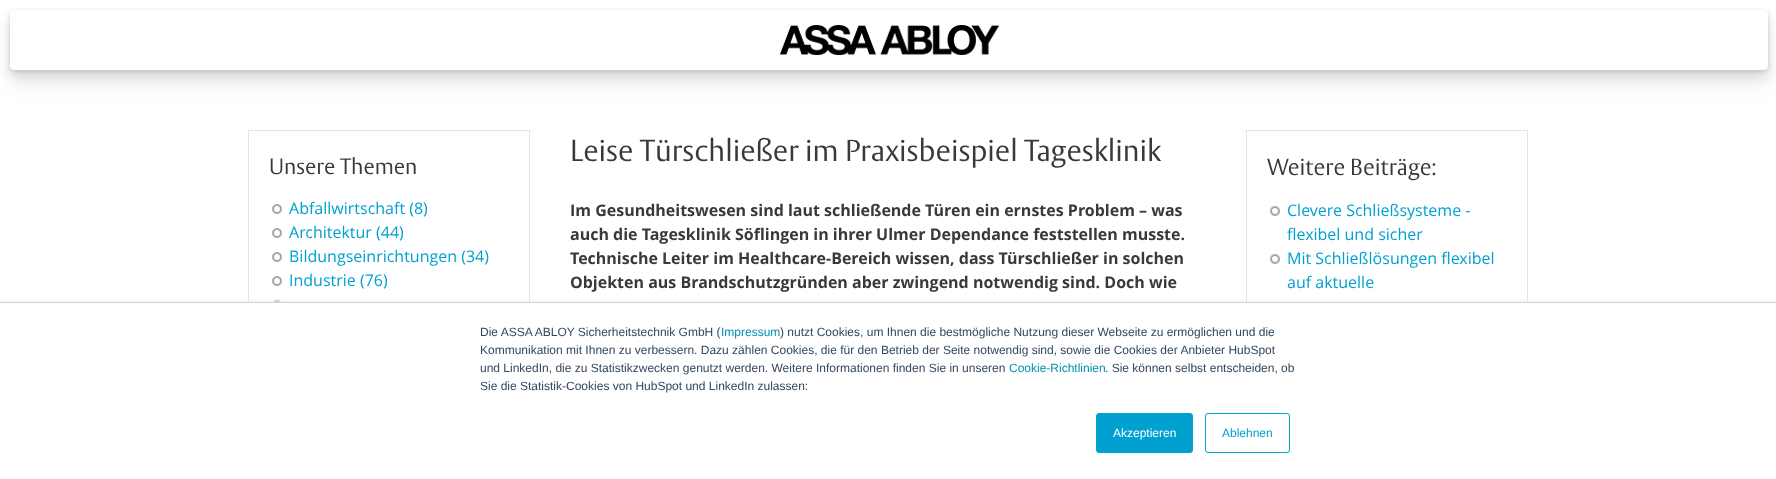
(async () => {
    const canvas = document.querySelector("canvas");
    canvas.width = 1776;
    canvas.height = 479;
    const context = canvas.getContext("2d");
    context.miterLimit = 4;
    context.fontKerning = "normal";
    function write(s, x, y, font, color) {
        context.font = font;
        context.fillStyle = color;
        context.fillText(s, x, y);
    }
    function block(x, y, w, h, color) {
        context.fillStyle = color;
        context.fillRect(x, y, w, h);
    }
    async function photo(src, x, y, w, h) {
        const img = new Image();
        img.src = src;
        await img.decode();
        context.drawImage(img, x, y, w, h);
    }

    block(0, 0, 1776, 479, "rgb(255, 255, 255)");
    context.save();
    context.beginPath();
    context.moveTo(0, 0);
    context.lineTo(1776, 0);
    context.lineTo(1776, 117);
    context.lineTo(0, 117);
    context.closePath();
    context.moveTo(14, 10);
    context.lineTo(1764, 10);
    context.bezierCurveTo(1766, 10, 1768, 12, 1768, 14);
    context.lineTo(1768, 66);
    context.bezierCurveTo(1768, 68, 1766, 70, 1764, 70);
    context.lineTo(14, 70);
    context.bezierCurveTo(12, 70, 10, 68, 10, 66);
    context.lineTo(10, 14);
    context.bezierCurveTo(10, 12, 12, 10, 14, 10);
    context.closePath();
    context.clip("evenodd");
    context.fillStyle = "rgba(0, 0, 0, 0.05)";
    context.filter = "blur(10px)";
    context.beginPath();
    context.roundRect(10, 26, 1758, 60, 4);
    context.fill();
    context.filter = "none";
    context.restore();
    context.save();
    context.beginPath();
    context.moveTo(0, 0);
    context.lineTo(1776, 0);
    context.lineTo(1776, 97);
    context.lineTo(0, 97);
    context.closePath();
    context.moveTo(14, 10);
    context.lineTo(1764, 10);
    context.bezierCurveTo(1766, 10, 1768, 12, 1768, 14);
    context.lineTo(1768, 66);
    context.bezierCurveTo(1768, 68, 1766, 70, 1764, 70);
    context.lineTo(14, 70);
    context.bezierCurveTo(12, 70, 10, 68, 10, 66);
    context.lineTo(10, 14);
    context.bezierCurveTo(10, 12, 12, 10, 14, 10);
    context.closePath();
    context.clip("evenodd");
    context.fillStyle = "rgba(0, 0, 0, 0.1)";
    context.filter = "blur(6px)";
    context.beginPath();
    context.roundRect(10, 18, 1758, 60, 4);
    context.fill();
    context.filter = "none";
    context.restore();
    context.save();
    context.beginPath();
    context.moveTo(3, 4);
    context.lineTo(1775, 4);
    context.lineTo(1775, 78);
    context.lineTo(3, 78);
    context.closePath();
    context.moveTo(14, 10);
    context.lineTo(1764, 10);
    context.bezierCurveTo(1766, 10, 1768, 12, 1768, 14);
    context.lineTo(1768, 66);
    context.bezierCurveTo(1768, 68, 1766, 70, 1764, 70);
    context.lineTo(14, 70);
    context.bezierCurveTo(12, 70, 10, 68, 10, 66);
    context.lineTo(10, 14);
    context.bezierCurveTo(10, 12, 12, 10, 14, 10);
    context.closePath();
    context.clip("evenodd");
    context.fillStyle = "rgba(0, 0, 0, 0.15)";
    context.filter = "blur(2px)";
    context.beginPath();
    context.roundRect(10, 11, 1758, 60, 4);
    context.fill();
    context.filter = "none";
    context.restore();
    await photo("media/1.png", 780, 25, 219, 30);
    block(248, 130, 282, 1, "rgb(227, 227, 227)");
    context.beginPath();
    context.moveTo(530, 130);
    context.lineTo(530, 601);
    context.lineTo(529, 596);
    context.lineTo(529, 131);
    context.closePath();
    context.fill();
    context.beginPath();
    context.moveTo(248, 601);
    context.lineTo(248, 130);
    context.lineTo(249, 131);
    context.lineTo(249, 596);
    context.closePath();
    context.fill();
    write("Unsere Themen", 269, 174, "300 22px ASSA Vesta", "rgb(57, 57, 57)");
    await photo("media/2.png", 272, 204, 10, 10);
    write("Abfallwirtschaft (8)", 289, 214, "16px Open Sans", "rgb(0, 160, 208)");
    await photo("media/2.png", 272, 228, 10, 10);
    write("Architektur (44)", 289, 238, "16px Open Sans", "rgb(0, 160, 208)");
    await photo("media/2.png", 272, 252, 10, 10);
    write("Bildungseinrichtungen (34)", 289, 262, "16px Open Sans", "rgb(0, 160, 208)");
    await photo("media/2.png", 272, 276, 10, 10);
    write("Industrie (76)", 289, 286, "16px Open Sans", "rgb(0, 160, 208)");
    await photo("media/3.png", 273, 300, 8, 2);
    write("Leise Türschließer im Praxisbeispiel Tagesklinik", 570, 161, "300 30px ASSA Vesta", "rgb(57, 57, 57)");
    write("Im Gesundheitswesen sind laut schließende Türen ein ernstes Problem – was", 570, 216, "bold 16px Open Sans", "rgb(57, 57, 57)");
    write("auch die Tagesklinik Söflingen in ihrer Ulmer Dependance feststellen musste.", 570, 240, "bold 16px Open Sans", "rgb(57, 57, 57)");
    write("Technische Leiter im Healthcare-Bereich wissen, dass Türschließer in solchen", 570, 264, "bold 16px Open Sans", "rgb(57, 57, 57)");
    write("Objekten aus Brandschutzgründen aber zwingend notwendig sind. Doch wie", 570, 288, "bold 16px Open Sans", "rgb(57, 57, 57)");
    block(1246, 130, 282, 1, "rgb(227, 227, 227)");
    context.beginPath();
    context.moveTo(1528, 130);
    context.lineTo(1528, 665);
    context.lineTo(1527, 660);
    context.lineTo(1527, 131);
    context.closePath();
    context.fill();
    context.beginPath();
    context.moveTo(1246, 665);
    context.lineTo(1246, 130);
    context.lineTo(1247, 131);
    context.lineTo(1247, 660);
    context.closePath();
    context.fill();
    write("Weitere Beiträge:", 1267, 175, "300 23px ASSA Vesta", "rgb(57, 57, 57)");
    await photo("media/2.png", 1270, 206, 10, 10);
    write("Clevere Schließsysteme -", 1287, 216, "16px Open Sans", "rgb(0, 160, 208)");
    write("flexibel und sicher", 1287, 240, "16px Open Sans", "rgb(0, 160, 208)");
    await photo("media/2.png", 1270, 254, 10, 10);
    write("Mit Schließlösungen flexibel", 1287, 264, "16px Open Sans", "rgb(0, 160, 208)");
    write("auf aktuelle", 1287, 288, "16px Open Sans", "rgb(0, 160, 208)");
    context.fillStyle = "rgb(234, 240, 246)";
    context.filter = "blur(1.5px)";
    context.beginPath();
    context.rect(0, 301, 1776, 177);
    context.fill();
    context.filter = "none";
    block(0, 303, 1776, 176, "rgb(255, 255, 255)");
    block(0, 302, 1776, 1, "rgb(203, 214, 226)");
    write("Die ASSA ABLOY Sicherheitstechnik GmbH (", 480, 336, "12px Liberation Sans", "rgb(51, 71, 91)");
    write("Impressum", 721, 336, "12px Liberation Sans", "rgb(0, 145, 174)");
    write(") nutzt Cookies, um Ihnen die bestmögliche Nutzung dieser Webseite zu ermöglichen und die", 780, 336, "12px Liberation Sans", "rgb(51, 71, 91)");
    write("Kommunikation mit Ihnen zu verbessern. Dazu zählen Cookies, die für den Betrieb der Seite notwendig sind, sowie die Cookies der Anbieter HubSpot", 480, 354, "12px Liberation Sans", "rgb(51, 71, 91)");
    write("und LinkedIn, die zu Statistikzwecken genutzt werden. Weitere Informationen finden Sie in unseren", 480, 372, "12px Liberation Sans", "rgb(51, 71, 91)");
    write("Cookie-Richtlinien", 1009, 372, "12px Liberation Sans", "rgb(0, 145, 174)");
    write(". Sie können selbst entscheiden, ob", 1105, 372, "12px Liberation Sans", "rgb(51, 71, 91)");
    write("Sie die Statistik-Cookies von HubSpot und LinkedIn zulassen:", 480, 390, "12px Liberation Sans", "rgb(51, 71, 91)");
    context.fillStyle = "rgb(0, 160, 208)";
    context.beginPath();
    context.roundRect(1096.5, 413.5, 96, 39, 2.5);
    context.fill();
    context.strokeStyle = "rgb(0, 160, 208)";
    context.stroke();
    write("Akzeptieren", 1113, 437, "12px Liberation Sans", "rgb(255, 255, 255)");
    context.beginPath();
    context.roundRect(1205.5, 413.5, 84, 39, 2.5);
    context.stroke();
    write("Ablehnen", 1222, 437, "12px Liberation Sans", "rgb(0, 160, 208)");
})();
